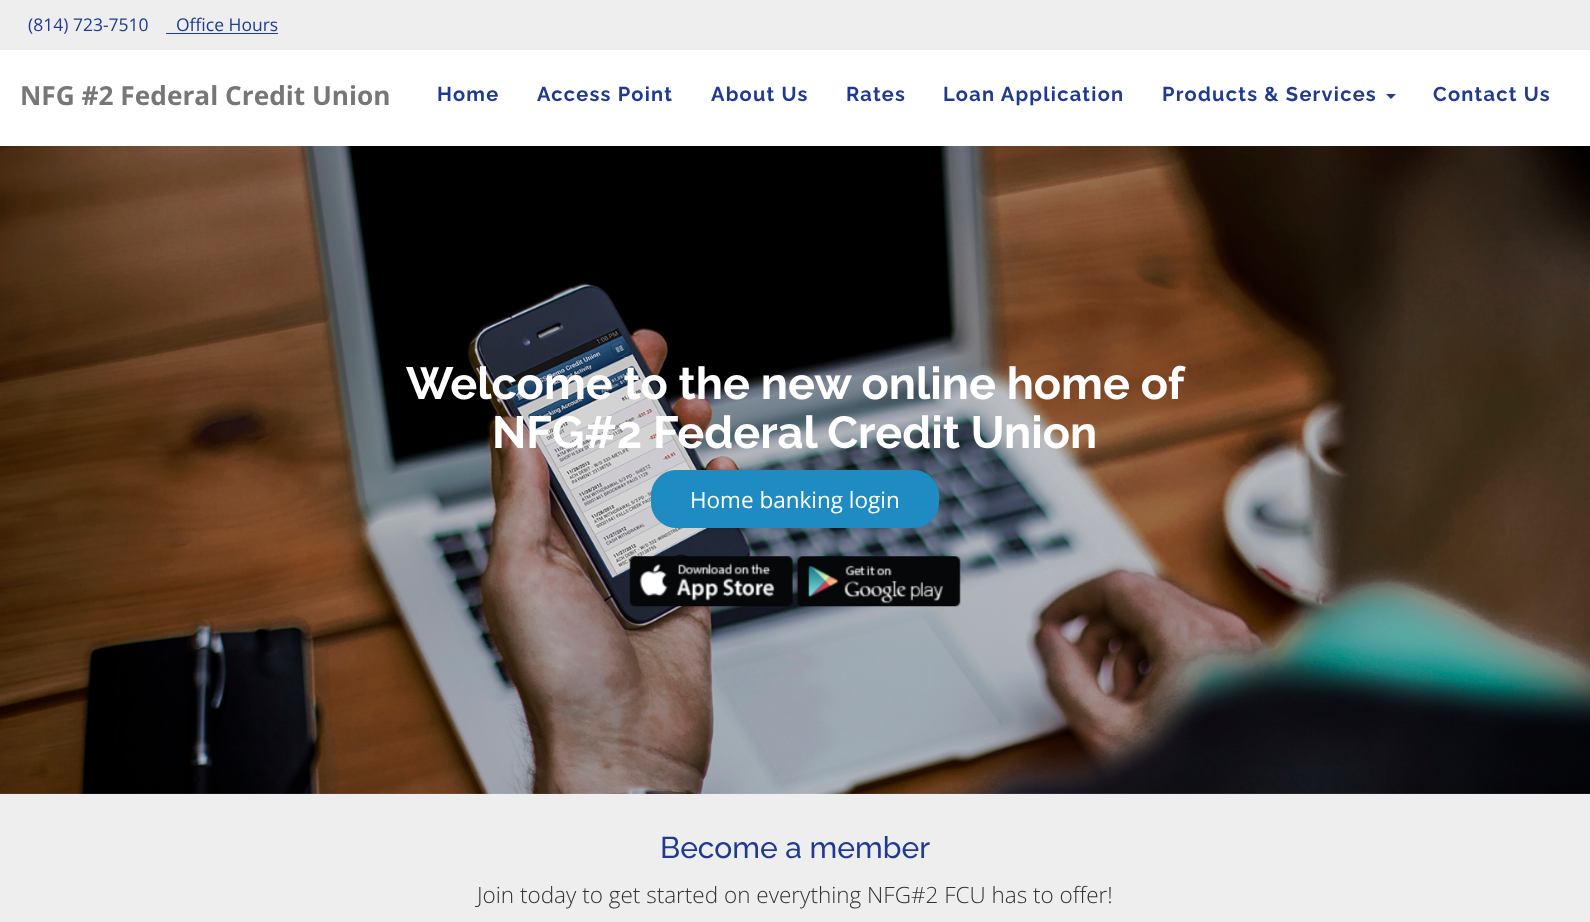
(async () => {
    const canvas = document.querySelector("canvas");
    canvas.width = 1590;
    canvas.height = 922;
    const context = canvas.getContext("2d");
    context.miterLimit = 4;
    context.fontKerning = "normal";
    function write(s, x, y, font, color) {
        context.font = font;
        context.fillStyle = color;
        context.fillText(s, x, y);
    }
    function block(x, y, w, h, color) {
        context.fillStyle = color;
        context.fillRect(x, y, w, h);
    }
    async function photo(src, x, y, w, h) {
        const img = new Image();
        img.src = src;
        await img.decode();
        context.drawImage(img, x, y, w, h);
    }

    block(0, 0, 1590, 922, "rgb(255, 255, 255)");
    block(0, 0, 1590, 50, "rgb(238, 238, 238)");
    write("(814) 723-7510", 28, 31, "17.5px Open Sans", "rgb(31, 58, 147)");
    write("Office Hours", 176, 31, "17.5px Open Sans", "rgb(31, 58, 147)");
    block(166, 33, 112, 1, "rgb(31, 58, 147)");
    write("NFG #2 Federal Credit Union", 20, 105, "bold 26.25px Open Sans", "rgb(119, 119, 119)");
    context.letterSpacing = "1.25px";
    write("Home", 437, 101, "bold 20px Raleway", "rgb(31, 58, 147)");
    write("Access Point", 537, 101, "bold 20px Raleway", "rgb(31, 58, 147)");
    write("About Us", 711, 101, "bold 20px Raleway", "rgb(31, 58, 147)");
    write("Rates", 846, 101, "bold 20px Raleway", "rgb(31, 58, 147)");
    write("Loan Application", 943, 101, "bold 20px Raleway", "rgb(31, 58, 147)");
    write("Products & Services", 1162, 101, "bold 20px Raleway", "rgb(31, 58, 147)");
    context.beginPath();
    context.moveTo(1386, 94);
    context.lineTo(1396, 94);
    context.lineTo(1391, 99);
    context.closePath();
    context.fill();
    write("Contact Us", 1433, 101, "bold 20px Raleway", "rgb(31, 58, 147)");
    await photo("media/1.png", 0, 146, 1590, 648);
    context.letterSpacing = "0px";
    write("Welcome to the new online home of", 406, 399, "bold 45px Raleway", "rgb(255, 255, 255)");
    write("NFG#2 Federal Credit Union", 492, 448, "bold 45px Raleway", "rgb(255, 255, 255)");
    context.fillStyle = "rgb(30, 139, 195)";
    context.beginPath();
    context.roundRect(651.5, 470.5, 287, 57, 24.5);
    context.fill();
    context.strokeStyle = "rgb(30, 139, 195)";
    context.stroke();
    write("Home banking login", 690, 508, "22.5px Open Sans", "rgb(255, 255, 255)");
    await photo("media/2.png", 629, 556, 164, 51);
    await photo("media/3.png", 796, 556, 165, 51);
    block(0, 794, 1590, 128, "rgb(238, 238, 238)");
    write("Become a member", 660, 858, "500 30px Raleway", "rgb(31, 58, 147)");
    write("Join today to get started on everything NFG#2 FCU has to offer!", 477, 903, "300 22.5px Open Sans", "rgb(51, 51, 51)");
})();
